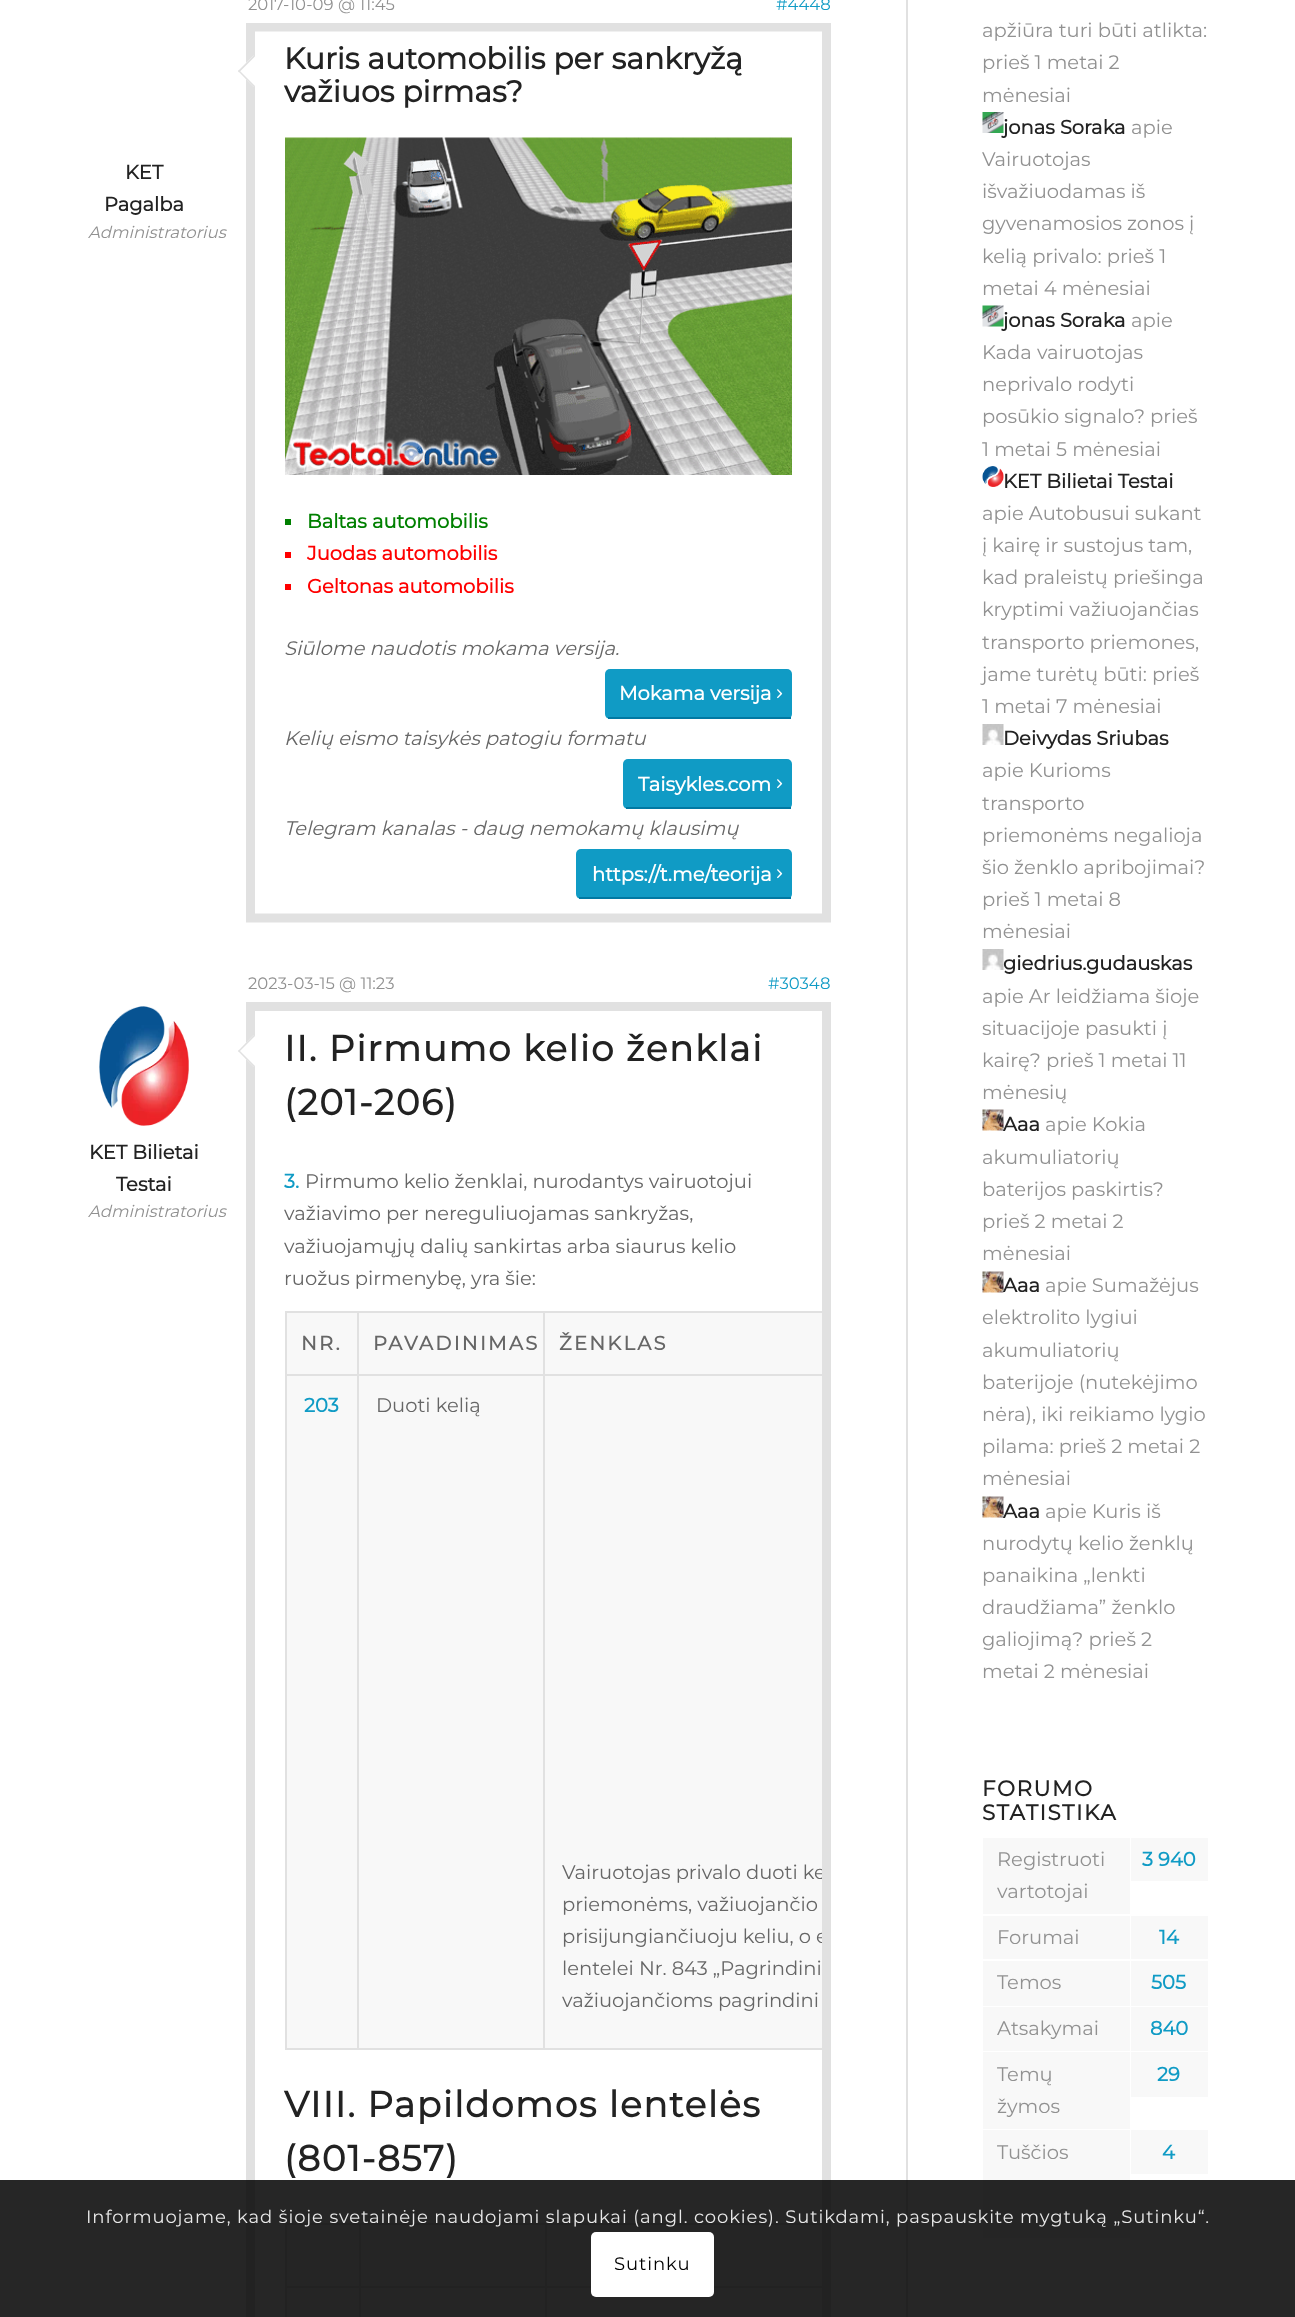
(async () => {
    const canvas = document.querySelector("canvas");
    canvas.width = 1295;
    canvas.height = 2317;
    const context = canvas.getContext("2d");
    context.miterLimit = 4;
    context.fontKerning = "normal";
    function write(s, x, y, font, color) {
        context.font = font;
        context.fillStyle = color;
        context.fillText(s, x, y);
    }
    function block(x, y, w, h, color) {
        context.fillStyle = color;
        context.fillRect(x, y, w, h);
    }
    function card(x, y, w, h, r, color) {
        context.fillStyle = color;
        context.beginPath();
        context.roundRect(x, y, w, h, r);
        context.fill();
    }
    async function photo(src, x, y, w, h) {
        const img = new Image();
        img.src = src;
        await img.decode();
        context.drawImage(img, x, y, w, h);
    }

    block(0, 0, 1295, 2317, "rgb(255, 255, 255)");
    block(906, 0, 2, 2317, "rgb(225, 225, 225)");
    write("2017-10-09 @ 11:45", 248, 10, "100 16.5px Montserrat", "rgb(145, 145, 145)");
    write("#4448", 776, 10, "100 16.5px Montserrat", "rgb(16, 155, 197)");
    context.save();
    context.beginPath();
    context.rect(89, 23, 742, 945);
    context.clip();
    context.beginPath();
    context.moveTo(250.5, 27);
    context.lineTo(826.5, 27);
    context.lineTo(826.5, 918);
    context.lineTo(250.5, 918);
    context.closePath();
    context.strokeStyle = "rgb(225, 225, 225)";
    context.lineWidth = 9;
    context.stroke();
    context.restore();
    context.fillStyle = "rgb(255, 255, 255)";
    context.beginPath();
    context.moveTo(253.5, 55.5);
    context.lineTo(269.5, 71);
    context.lineTo(253.5, 87);
    context.lineTo(238, 71);
    context.closePath();
    context.fill();
    context.fillStyle = "rgb(225, 225, 225)";
    context.beginPath();
    context.moveTo(239, 70);
    context.lineTo(255, 86);
    context.lineTo(253.5, 87);
    context.lineTo(238, 71);
    context.closePath();
    context.fill();
    context.beginPath();
    context.moveTo(253.5, 55.5);
    context.lineTo(255, 56.5);
    context.lineTo(239, 72.5);
    context.lineTo(238, 71);
    context.closePath();
    context.fill();
    write("KET", 125, 179, "bold 19.5px Montserrat", "rgb(34, 34, 34)");
    write("Pagalba", 104, 211, "bold 19.5px Montserrat", "rgb(34, 34, 34)");
    write("Administratorius", 88, 238, "italic 100 16.5px Montserrat", "rgb(145, 145, 145)");
    write("Kuris automobilis per sankryžą", 284, 69, "bold 30px Montserrat", "rgb(34, 34, 34)");
    write("važiuos pirmas?", 284, 102, "bold 30px Montserrat", "rgb(34, 34, 34)");
    await photo("media/1.png", 285, 137, 507, 338);
    block(285, 519, 6, 6, "rgb(0, 128, 0)");
    write("Baltas automobilis", 307, 528, "bold 19.5px Montserrat", "rgb(0, 128, 0)");
    block(285, 552, 6, 6, "rgb(255, 0, 0)");
    write("Juodas automobilis", 307, 560, "bold 19.5px Montserrat", "rgb(255, 0, 0)");
    block(285, 584, 6, 6, "rgb(255, 0, 0)");
    write("Geltonas automobilis", 307, 593, "bold 19.5px Montserrat", "rgb(255, 0, 0)");
    write("Siūlome naudotis mokama versija.", 284, 655, "italic 100 19.5px Montserrat", "rgb(102, 102, 102)");
    card(605, 669, 187, 50, 5, "rgb(16, 155, 197)");
    block(608, 717, 183, 2, "rgb(0, 121, 163)");
    write("Mokama versija", 619, 700, "bold 19.5px Montserrat", "rgb(255, 255, 255)");
    await photo("media/2.png", 777, 689, 6, 10);
    write("Kelių eismo taisykės patogiu formatu", 284, 745, "italic 100 19.5px Montserrat", "rgb(102, 102, 102)");
    card(623, 759, 169, 50, 5, "rgb(16, 155, 197)");
    block(626, 807, 165, 2, "rgb(0, 121, 163)");
    write("Taisykles.com", 638, 791, "bold 19.5px Montserrat", "rgb(255, 255, 255)");
    await photo("media/2.png", 777, 779, 6, 10);
    write("Telegram kanalas - daug nemokamų klausimų", 284, 835, "italic 100 19.5px Montserrat", "rgb(102, 102, 102)");
    card(576, 849, 216, 50, 5, "rgb(16, 155, 197)");
    block(579, 897, 212, 2, "rgb(0, 121, 163)");
    write("https://t.me/teorija", 592, 881, "bold 19.5px Montserrat", "rgb(255, 255, 255)");
    await photo("media/2.png", 777, 869, 6, 10);
    write("2023-03-15 @ 11:23", 248, 989, "100 16.5px Montserrat", "rgb(145, 145, 145)");
    write("#30348", 768, 989, "100 16.5px Montserrat", "rgb(16, 155, 197)");
    context.beginPath();
    context.moveTo(250.5, 1006.5);
    context.lineTo(826.5, 1006.5);
    context.lineTo(826.5, 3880.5);
    context.lineTo(250.5, 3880.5);
    context.closePath();
    context.strokeStyle = "rgb(225, 225, 225)";
    context.lineWidth = 9;
    context.stroke();
    context.fillStyle = "rgb(255, 255, 255)";
    context.beginPath();
    context.moveTo(253.5, 1035);
    context.lineTo(269.5, 1051);
    context.lineTo(253.5, 1067);
    context.lineTo(238, 1051);
    context.closePath();
    context.fill();
    context.fillStyle = "rgb(225, 225, 225)";
    context.beginPath();
    context.moveTo(239, 1050);
    context.lineTo(255, 1066);
    context.lineTo(253.5, 1067);
    context.lineTo(238, 1051);
    context.closePath();
    context.fill();
    context.beginPath();
    context.moveTo(253.5, 1035);
    context.lineTo(255, 1036);
    context.lineTo(239, 1052);
    context.lineTo(238, 1051);
    context.closePath();
    context.fill();
    await photo("media/3.png", 99, 1006, 90, 120);
    write("KET Bilietai", 89, 1159, "bold 19.5px Montserrat", "rgb(34, 34, 34)");
    write("Testai", 116, 1191, "bold 19.5px Montserrat", "rgb(34, 34, 34)");
    write("Administratorius", 88, 1217, "italic 100 16.5px Montserrat", "rgb(145, 145, 145)");
    context.letterSpacing = "1.5px";
    write("II. Pirmumo kelio ženklai", 284, 1061, "bold 36px Montserrat", "rgb(34, 34, 34)");
    write("(201-206)", 284, 1115, "bold 36px Montserrat", "rgb(34, 34, 34)");
    context.letterSpacing = "0px";
    write("3.", 284, 1188, "bold 19.5px Montserrat", "rgb(16, 155, 197)");
    write("Pirmumo kelio ženklai, nurodantys vairuotojui", 305, 1188, "100 19.5px Montserrat", "rgb(102, 102, 102)");
    write("važiavimo per nereguliuojamas sankryžas,", 284, 1220, "100 19.5px Montserrat", "rgb(102, 102, 102)");
    write("važiuojamųjų dalių sankirtas arba siaurus kelio", 284, 1253, "100 19.5px Montserrat", "rgb(102, 102, 102)");
    write("ruožus pirmenybę, yra šie:", 284, 1285, "100 19.5px Montserrat", "rgb(102, 102, 102)");
    block(287, 1313, 535, 735, "rgb(248, 248, 248)");
    block(285, 1311, 537, 2, "rgb(225, 225, 225)");
    block(285, 1374, 537, 2, "rgb(225, 225, 225)");
    block(543, 2048, 279, 2, "rgb(225, 225, 225)");
    block(543, 1374, 2, 675, "rgb(225, 225, 225)");
    block(357, 2048, 188, 2, "rgb(225, 225, 225)");
    block(357, 1374, 2, 675, "rgb(225, 225, 225)");
    block(357, 1311, 2, 65, "rgb(225, 225, 225)");
    block(285, 2048, 74, 2, "rgb(225, 225, 225)");
    block(285, 1374, 2, 675, "rgb(225, 225, 225)");
    block(285, 1311, 2, 65, "rgb(225, 225, 225)");
    context.letterSpacing = "2.25px";
    write("NR.", 301, 1350, "bold 19.5px Montserrat", "rgb(102, 102, 102)");
    block(543, 1311, 2, 65, "rgb(225, 225, 225)");
    write("PAVADINIMAS", 373, 1350, "bold 19.5px Montserrat", "rgb(102, 102, 102)");
    write("ŽENKLAS", 559, 1350, "bold 19.5px Montserrat", "rgb(102, 102, 102)");
    context.letterSpacing = "0px";
    write("203", 304, 1412, "bold 19.5px Montserrat", "rgb(16, 155, 197)");
    write("Duoti kelią", 376, 1412, "100 19.5px Montserrat", "rgb(102, 102, 102)");
    context.save();
    context.beginPath();
    context.rect(255, 1011, 567, 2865);
    context.clip();
    write("Vairuotojas privalo duoti ke", 562, 1879, "100 19.5px Montserrat", "rgb(102, 102, 102)");
    context.restore();
    write("priemonėms, važiuojančio", 562, 1911, "100 19.5px Montserrat", "rgb(102, 102, 102)");
    context.save();
    context.beginPath();
    context.rect(255, 1011, 567, 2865);
    context.clip();
    write("prisijungiančiuoju keliu, o e", 562, 1943, "100 19.5px Montserrat", "rgb(102, 102, 102)");
    context.restore();
    write("lentelei Nr. 843 „Pagrindini", 562, 1975, "100 19.5px Montserrat", "rgb(102, 102, 102)");
    write("važiuojančioms pagrindini", 562, 2007, "100 19.5px Montserrat", "rgb(102, 102, 102)");
    context.letterSpacing = "1.5px";
    write("VIII. Papildomos lentelės", 284, 2117, "bold 36px Montserrat", "rgb(34, 34, 34)");
    write("(801-857)", 284, 2171, "bold 36px Montserrat", "rgb(34, 34, 34)");
    block(287, 2225, 535, 92, "rgb(248, 248, 248)");
    block(285, 2223, 537, 2, "rgb(225, 225, 225)");
    block(285, 2286, 537, 2, "rgb(225, 225, 225)");
    block(359, 2286, 2, 31, "rgb(225, 225, 225)");
    block(359, 2223, 2, 65, "rgb(225, 225, 225)");
    block(285, 2286, 2, 31, "rgb(225, 225, 225)");
    block(285, 2223, 2, 65, "rgb(225, 225, 225)");
    block(545, 2286, 2, 31, "rgb(225, 225, 225)");
    block(545, 2223, 2, 65, "rgb(225, 225, 225)");
    context.letterSpacing = "0px";
    write("apžiūra turi būti atlikta:", 982, 37, "100 19.5px Montserrat", "rgb(145, 145, 145)");
    write("prieš 1 metai 2", 982, 69, "100 19.5px Montserrat", "rgb(145, 145, 145)");
    write("mėnesiai", 982, 102, "100 19.5px Montserrat", "rgb(145, 145, 145)");
    await photo("media/4.png", 982, 112, 22, 21);
    write("jonas Soraka", 1003, 134, "bold 19.5px Montserrat", "rgb(34, 34, 34)");
    write("apie", 1131, 134, "100 19.5px Montserrat", "rgb(145, 145, 145)");
    write("Vairuotojas", 982, 166, "100 19.5px Montserrat", "rgb(145, 145, 145)");
    write("išvažiuodamas iš", 982, 198, "100 19.5px Montserrat", "rgb(145, 145, 145)");
    write("gyvenamosios zonos į", 982, 230, "100 19.5px Montserrat", "rgb(145, 145, 145)");
    write("kelią privalo: prieš 1", 982, 263, "100 19.5px Montserrat", "rgb(145, 145, 145)");
    write("metai 4 mėnesiai", 982, 295, "100 19.5px Montserrat", "rgb(145, 145, 145)");
    await photo("media/5.png", 982, 305, 22, 22);
    write("jonas Soraka", 1003, 327, "bold 19.5px Montserrat", "rgb(34, 34, 34)");
    write("apie", 1131, 327, "100 19.5px Montserrat", "rgb(145, 145, 145)");
    write("Kada vairuotojas", 982, 359, "100 19.5px Montserrat", "rgb(145, 145, 145)");
    write("neprivalo rodyti", 982, 391, "100 19.5px Montserrat", "rgb(145, 145, 145)");
    write("posūkio signalo? prieš", 982, 423, "100 19.5px Montserrat", "rgb(145, 145, 145)");
    write("1 metai 5 mėnesiai", 982, 456, "100 19.5px Montserrat", "rgb(145, 145, 145)");
    await photo("media/6.png", 982, 466, 22, 21);
    write("KET Bilietai Testai", 1003, 488, "bold 19.5px Montserrat", "rgb(34, 34, 34)");
    write("apie Autobusui sukant", 982, 520, "100 19.5px Montserrat", "rgb(145, 145, 145)");
    write("į kairę ir sustojus tam,", 982, 552, "100 19.5px Montserrat", "rgb(145, 145, 145)");
    write("kad praleistų priešinga", 982, 584, "100 19.5px Montserrat", "rgb(145, 145, 145)");
    write("kryptimi važiuojančias", 982, 616, "100 19.5px Montserrat", "rgb(145, 145, 145)");
    write("transporto priemones,", 982, 649, "100 19.5px Montserrat", "rgb(145, 145, 145)");
    write("jame turėtų būti: prieš", 982, 681, "100 19.5px Montserrat", "rgb(145, 145, 145)");
    write("1 metai 7 mėnesiai", 982, 713, "100 19.5px Montserrat", "rgb(145, 145, 145)");
    await photo("media/7.png", 982, 724, 22, 21);
    write("Deivydas Sriubas", 1003, 745, "bold 19.5px Montserrat", "rgb(34, 34, 34)");
    write("apie Kurioms", 982, 777, "100 19.5px Montserrat", "rgb(145, 145, 145)");
    write("transporto", 982, 810, "100 19.5px Montserrat", "rgb(145, 145, 145)");
    write("priemonėms negalioja", 982, 842, "100 19.5px Montserrat", "rgb(145, 145, 145)");
    write("šio ženklo apribojimai?", 982, 874, "100 19.5px Montserrat", "rgb(145, 145, 145)");
    write("prieš 1 metai 8", 982, 906, "100 19.5px Montserrat", "rgb(145, 145, 145)");
    write("mėnesiai", 982, 938, "100 19.5px Montserrat", "rgb(145, 145, 145)");
    await photo("media/7.png", 982, 949, 22, 21);
    write("giedrius.gudauskas", 1003, 970, "bold 19.5px Montserrat", "rgb(34, 34, 34)");
    write("apie Ar leidžiama šioje", 982, 1003, "100 19.5px Montserrat", "rgb(145, 145, 145)");
    write("situacijoje pasukti į", 982, 1035, "100 19.5px Montserrat", "rgb(145, 145, 145)");
    write("kairę? prieš 1 metai 11", 982, 1067, "100 19.5px Montserrat", "rgb(145, 145, 145)");
    write("mėnesių", 982, 1099, "100 19.5px Montserrat", "rgb(145, 145, 145)");
    await photo("media/8.png", 982, 1109, 22, 22);
    write("Aaa", 1003, 1131, "bold 19.5px Montserrat", "rgb(34, 34, 34)");
    write("apie Kokia", 1045, 1131, "100 19.5px Montserrat", "rgb(145, 145, 145)");
    write("akumuliatorių", 982, 1164, "100 19.5px Montserrat", "rgb(145, 145, 145)");
    write("baterijos paskirtis?", 982, 1196, "100 19.5px Montserrat", "rgb(145, 145, 145)");
    write("prieš 2 metai 2", 982, 1228, "100 19.5px Montserrat", "rgb(145, 145, 145)");
    write("mėnesiai", 982, 1260, "100 19.5px Montserrat", "rgb(145, 145, 145)");
    await photo("media/9.png", 982, 1271, 22, 22);
    write("Aaa", 1003, 1292, "bold 19.5px Montserrat", "rgb(34, 34, 34)");
    write("apie Sumažėjus", 1045, 1292, "100 19.5px Montserrat", "rgb(145, 145, 145)");
    write("elektrolito lygiui", 982, 1324, "100 19.5px Montserrat", "rgb(145, 145, 145)");
    write("akumuliatorių", 982, 1357, "100 19.5px Montserrat", "rgb(145, 145, 145)");
    write("baterijoje (nutekėjimo", 982, 1389, "100 19.5px Montserrat", "rgb(145, 145, 145)");
    write("nėra), iki reikiamo lygio", 982, 1421, "100 19.5px Montserrat", "rgb(145, 145, 145)");
    write("pilama: prieš 2 metai 2", 982, 1453, "100 19.5px Montserrat", "rgb(145, 145, 145)");
    write("mėnesiai", 982, 1485, "100 19.5px Montserrat", "rgb(145, 145, 145)");
    await photo("media/9.png", 982, 1496, 22, 22);
    write("Aaa", 1003, 1518, "bold 19.5px Montserrat", "rgb(34, 34, 34)");
    write("apie Kuris iš", 1045, 1518, "100 19.5px Montserrat", "rgb(145, 145, 145)");
    write("nurodytų kelio ženklų", 982, 1550, "100 19.5px Montserrat", "rgb(145, 145, 145)");
    write("panaikina „lenkti", 982, 1582, "100 19.5px Montserrat", "rgb(145, 145, 145)");
    write("draudžiama” ženklo", 982, 1614, "100 19.5px Montserrat", "rgb(145, 145, 145)");
    write("galiojimą? prieš 2", 982, 1646, "100 19.5px Montserrat", "rgb(145, 145, 145)");
    write("metai 2 mėnesiai", 982, 1678, "100 19.5px Montserrat", "rgb(145, 145, 145)");
    context.letterSpacing = "1.5px";
    write("FORUMO", 982, 1796, "bold 21.5px Montserrat", "rgb(34, 34, 34)");
    write("STATISTIKA", 982, 1820, "bold 21.5px Montserrat", "rgb(34, 34, 34)");
    block(983, 1838, 147, 76, "rgb(248, 248, 248)");
    context.letterSpacing = "0px";
    write("Registruoti", 997, 1866, "100 19.5px Montserrat", "rgb(145, 145, 145)");
    write("vartotojai", 997, 1898, "100 19.5px Montserrat", "rgb(145, 145, 145)");
    block(1131, 1838, 77, 43, "rgb(248, 248, 248)");
    write("3 940", 1142, 1866, "bold 19.5px Montserrat", "rgb(16, 155, 197)");
    block(983, 1916, 147, 43, "rgb(248, 248, 248)");
    write("Forumai", 997, 1944, "100 19.5px Montserrat", "rgb(145, 145, 145)");
    block(1131, 1916, 77, 43, "rgb(248, 248, 248)");
    write("14", 1159, 1944, "bold 19.5px Montserrat", "rgb(16, 155, 197)");
    block(983, 1961, 147, 45, "rgb(248, 248, 248)");
    write("Temos", 997, 1989, "100 19.5px Montserrat", "rgb(145, 145, 145)");
    block(1131, 1961, 77, 45, "rgb(248, 248, 248)");
    write("505", 1151, 1989, "bold 19.5px Montserrat", "rgb(16, 155, 197)");
    block(983, 2007, 147, 44, "rgb(248, 248, 248)");
    write("Atsakymai", 997, 2035, "100 19.5px Montserrat", "rgb(145, 145, 145)");
    block(1131, 2007, 77, 44, "rgb(248, 248, 248)");
    write("840", 1150, 2035, "bold 19.5px Montserrat", "rgb(16, 155, 197)");
    block(983, 2052, 147, 77, "rgb(248, 248, 248)");
    write("Temų", 997, 2081, "100 19.5px Montserrat", "rgb(145, 145, 145)");
    write("žymos", 997, 2113, "100 19.5px Montserrat", "rgb(145, 145, 145)");
    block(1131, 2052, 77, 45, "rgb(248, 248, 248)");
    write("29", 1157, 2081, "bold 19.5px Montserrat", "rgb(16, 155, 197)");
    block(983, 2130, 147, 108, "rgb(248, 248, 248)");
    write("Tuščios", 997, 2159, "100 19.5px Montserrat", "rgb(145, 145, 145)");
    block(1131, 2130, 77, 44, "rgb(248, 248, 248)");
    write("4", 1162, 2159, "bold 19.5px Montserrat", "rgb(16, 155, 197)");
    block(0, 2180, 1295, 137, "rgba(0, 0, 0, 0.85)");
    context.letterSpacing = "0.9px";
    write("Informuojame, kad šioje svetainėje naudojami slapukai (angl. cookies). Sutikdami, paspauskite mygtuką „Sutinku“.", 86, 2223, "100 18px Montserrat", "rgb(233, 233, 233)");
    card(591, 2232, 123, 65, 5, "rgb(255, 255, 255)");
    write("Sutinku", 614, 2270, "100 18px Montserrat", "rgb(0, 0, 0)");
})();
